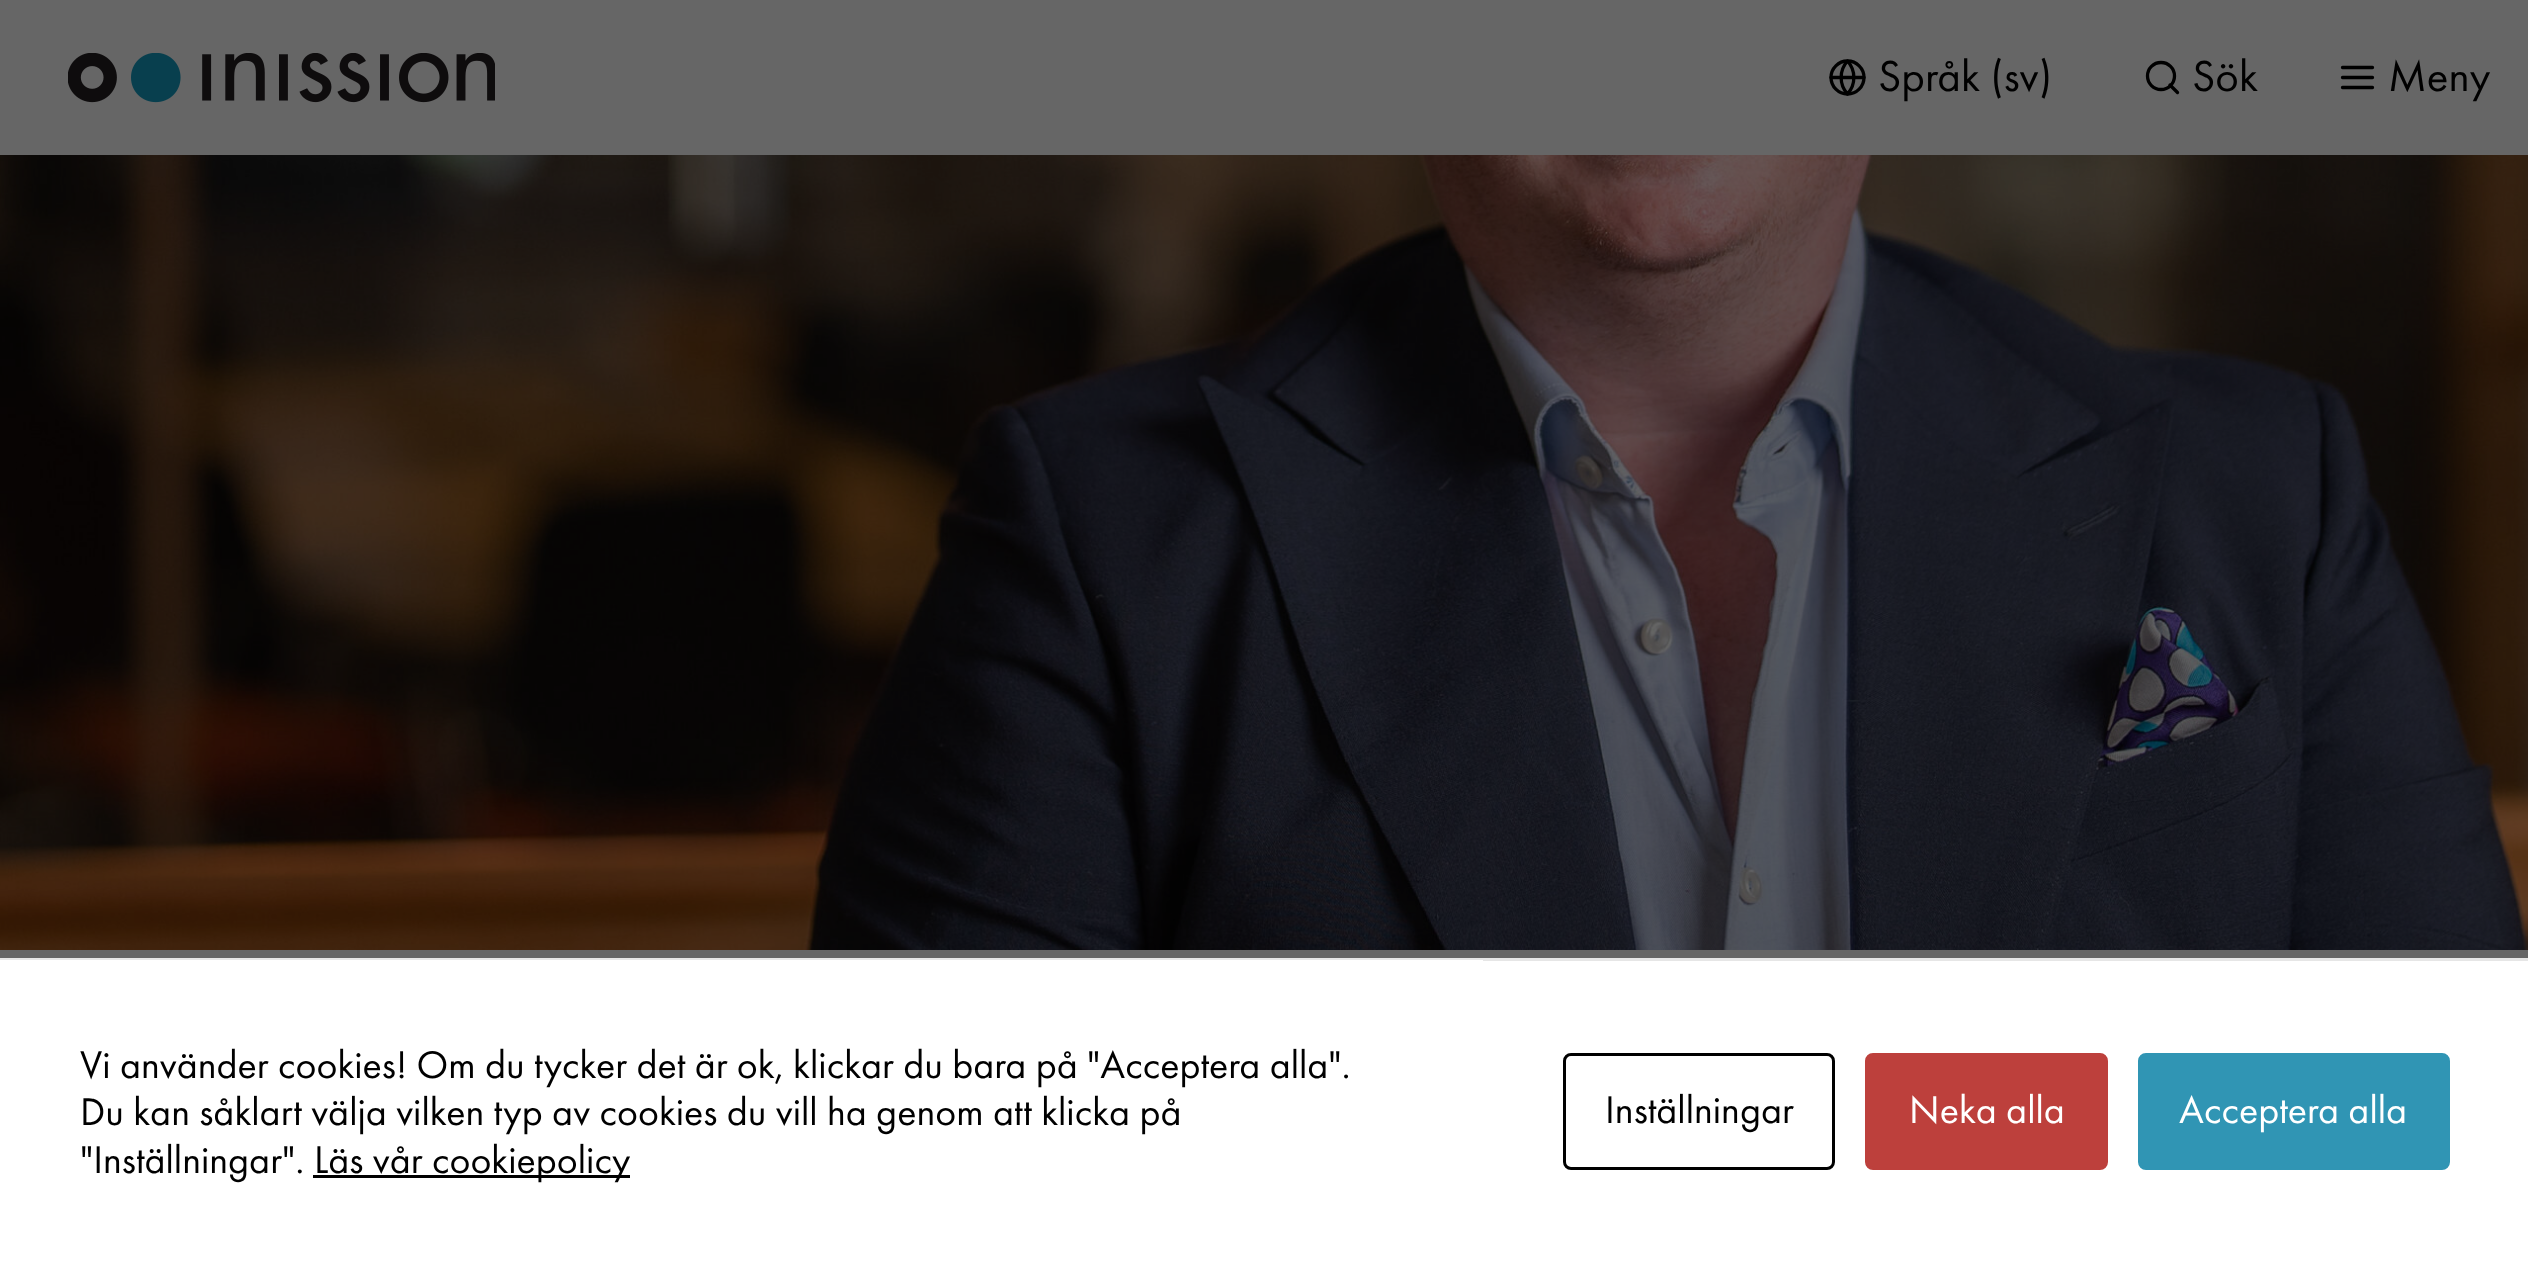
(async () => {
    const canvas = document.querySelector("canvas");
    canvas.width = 2528;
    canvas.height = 1261;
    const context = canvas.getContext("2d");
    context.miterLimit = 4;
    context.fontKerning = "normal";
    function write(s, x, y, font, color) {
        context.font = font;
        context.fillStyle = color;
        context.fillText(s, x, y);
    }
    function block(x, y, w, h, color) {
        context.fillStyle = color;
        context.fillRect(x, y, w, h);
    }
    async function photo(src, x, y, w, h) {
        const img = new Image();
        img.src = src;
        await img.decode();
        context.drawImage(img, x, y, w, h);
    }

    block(0, 0, 2528, 1261, "rgb(102, 102, 102)");
    await photo("media/1.png", 68, 53, 427, 50);
    context.beginPath();
    context.arc(1847.5, 77.5, 16.5, 0, Math.PI * 2);
    context.strokeStyle = "rgb(0, 0, 0)";
    context.lineWidth = 3.3;
    context.stroke();
    context.beginPath();
    context.moveTo(1831, 77.5);
    context.lineTo(1864, 77.5);
    context.moveTo(1847.5, 61);
    context.bezierCurveTo(1856, 70.5, 1856, 84.5, 1847.5, 94);
    context.bezierCurveTo(1839, 84.5, 1839, 70.5, 1847.5, 61);
    context.closePath();
    context.lineCap = "round";
    context.lineJoin = "round";
    context.stroke();
    write("Språk (sv)", 1878, 91, "45px Futura PT", "rgb(0, 0, 0)");
    context.beginPath();
    context.arc(2161, 76, 13.5, 0, Math.PI * 2);
    context.stroke();
    context.beginPath();
    context.moveTo(2177.5, 92.5);
    context.lineTo(2170, 85);
    context.stroke();
    write("Sök", 2192, 91, "45px Futura PT", "rgb(0, 0, 0)");
    context.beginPath();
    context.moveTo(2342.5, 77.5);
    context.lineTo(2372.5, 77.5);
    context.moveTo(2342.5, 67.5);
    context.lineTo(2372.5, 67.5);
    context.moveTo(2342.5, 87.5);
    context.lineTo(2372.5, 87.5);
    context.stroke();
    write("Meny", 2388, 91, "45px Futura PT", "rgb(0, 0, 0)");
    await photo("media/2.png", 0, 155, 2528, 795);
    block(1483, 961, 1045, 300, "rgb(255, 255, 255)");
    block(0, 958, 2528, 3, "rgb(230, 230, 230)");
    block(0, 960, 1483, 301, "rgb(255, 255, 255)");
    write("Vi använder cookies! Om du tycker det är ok, klickar du bara på \"Acceptera alla\".", 80, 1078, "40px Futura PT", "rgb(0, 0, 0)");
    write("Du kan såklart välja vilken typ av cookies du vill ha genom att klicka på", 80, 1125, "40px Futura PT", "rgb(0, 0, 0)");
    write("\"Inställningar\".", 80, 1173, "40px Futura PT", "rgb(0, 0, 0)");
    block(313, 1175, 317, 3, "rgb(0, 0, 0)");
    write("Läs vår cookiepolicy", 314, 1173, "40px Futura PT", "rgb(0, 0, 0)");
    context.beginPath();
    context.roundRect(1564.5, 1054.5, 269, 114, 6.5);
    context.lineWidth = 3;
    context.lineJoin = "miter";
    context.stroke();
    write("Inställningar", 1605, 1123, "40px Futura PT", "rgb(0, 0, 0)");
    context.fillStyle = "rgb(189, 64, 60)";
    context.beginPath();
    context.roundRect(1866.5, 1054.5, 240, 114, 6.5);
    context.fill();
    context.strokeStyle = "rgb(189, 64, 60)";
    context.stroke();
    write("Neka alla", 1909, 1123, "40px Futura PT", "rgb(255, 255, 255)");
    context.fillStyle = "rgb(48, 149, 180)";
    context.beginPath();
    context.roundRect(2139.5, 1054.5, 309, 114, 6.5);
    context.fill();
    context.strokeStyle = "rgb(48, 149, 180)";
    context.stroke();
    write("Acceptera alla", 2179, 1123, "40px Futura PT", "rgb(255, 255, 255)");
})();
